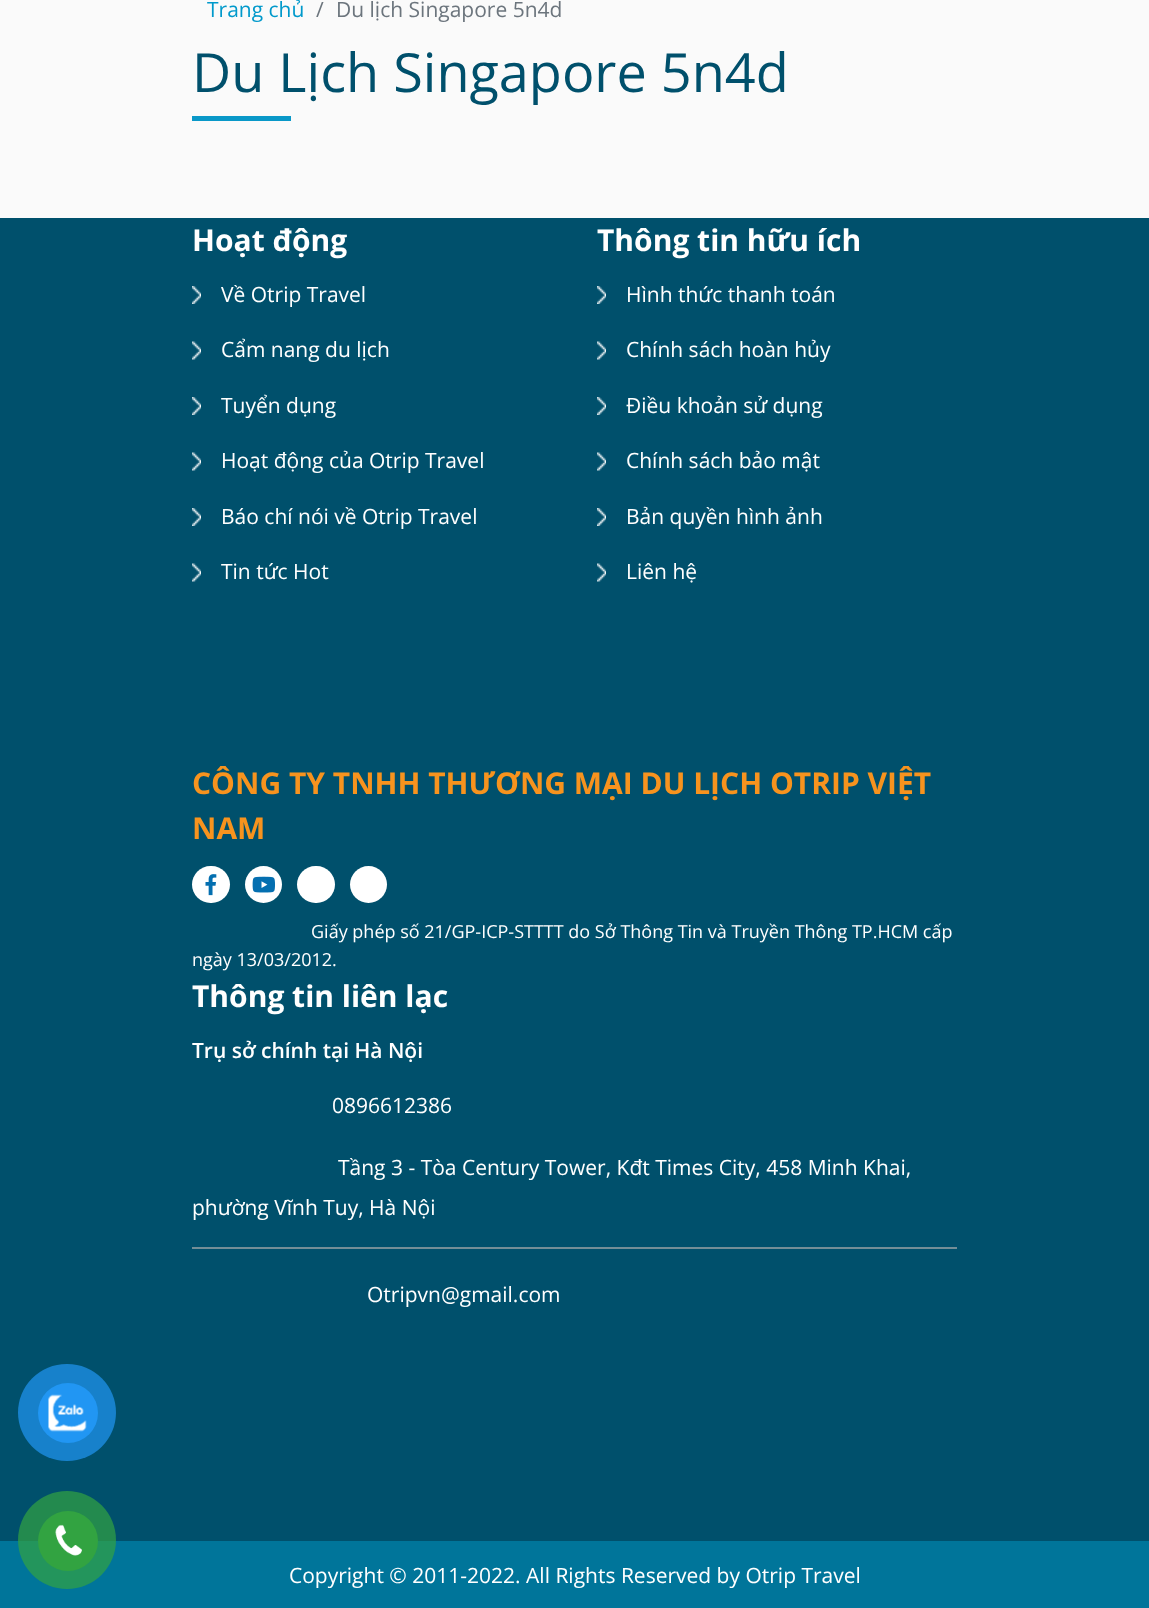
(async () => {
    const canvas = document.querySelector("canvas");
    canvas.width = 1149;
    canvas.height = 1608;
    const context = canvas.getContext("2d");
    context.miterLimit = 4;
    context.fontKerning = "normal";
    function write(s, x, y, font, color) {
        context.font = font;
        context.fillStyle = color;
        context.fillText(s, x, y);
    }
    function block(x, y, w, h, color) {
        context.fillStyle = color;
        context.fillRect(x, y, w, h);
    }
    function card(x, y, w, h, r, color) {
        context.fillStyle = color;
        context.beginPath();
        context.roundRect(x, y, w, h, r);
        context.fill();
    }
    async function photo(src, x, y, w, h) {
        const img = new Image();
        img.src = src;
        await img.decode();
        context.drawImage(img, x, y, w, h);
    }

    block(0, 0, 1149, 1608, "rgb(250, 250, 250)");
    block(0, 218, 1149, 1323, "rgb(0, 80, 108)");
    card(18, 1364, 98, 97, 48.5, "rgb(23, 129, 203)");
    context.fillStyle = "rgb(33, 150, 243)";
    context.beginPath();
    context.arc(68, 1413, 30, 0, Math.PI * 2);
    context.fill();
    await photo("media/1.png", 48, 1394, 39, 38);
    block(0, 1541, 1149, 67, "rgb(0, 117, 154)");
    context.fillStyle = "rgba(50, 163, 65, 0.7)";
    context.beginPath();
    context.arc(67, 1540, 49, 0, Math.PI * 2);
    context.fill();
    context.fillStyle = "rgb(50, 163, 65)";
    context.beginPath();
    context.arc(68, 1541, 30, 0, Math.PI * 2);
    context.fill();
    await photo("media/2.png", 55, 1524, 27, 32);
    write("Trang chủ", 207, 17, "21px Open Sans", "rgb(0, 153, 203)");
    write("/", 316, 17, "21px Open Sans", "rgb(108, 117, 125)");
    write("Du lịch Singapore 5n4d", 336, 17, "21px Open Sans", "rgb(108, 117, 125)");
    write("Du Lịch Singapore 5n4d", 192, 92, "54px Open Sans", "rgb(0, 80, 108)");
    block(192, 116, 99, 5, "rgb(9, 152, 200)");
    write("Hoạt động", 192, 251, "bold 30px Open Sans", "rgb(255, 255, 255)");
    await photo("media/3.png", 192, 286, 9, 18);
    write("Về Otrip Travel", 221, 302, "21px Open Sans", "rgb(255, 255, 255)");
    await photo("media/4.png", 192, 341, 9, 19);
    write("Cẩm nang du lịch", 221, 357, "21px Open Sans", "rgb(255, 255, 255)");
    await photo("media/3.png", 192, 397, 9, 18);
    write("Tuyển dụng", 221, 413, "21px Open Sans", "rgb(255, 255, 255)");
    await photo("media/4.png", 192, 452, 9, 19);
    write("Hoạt động của Otrip Travel", 221, 468, "21px Open Sans", "rgb(255, 255, 255)");
    await photo("media/3.png", 192, 508, 9, 18);
    write("Báo chí nói về Otrip Travel", 221, 524, "21px Open Sans", "rgb(255, 255, 255)");
    await photo("media/4.png", 192, 563, 9, 19);
    write("Tin tức Hot", 221, 579, "21px Open Sans", "rgb(255, 255, 255)");
    write("Thông tin hữu ích", 597, 251, "bold 30px Open Sans", "rgb(255, 255, 255)");
    await photo("media/5.png", 597, 286, 9, 18);
    write("Hình thức thanh toán", 626, 302, "21px Open Sans", "rgb(255, 255, 255)");
    await photo("media/6.png", 597, 341, 9, 19);
    write("Chính sách hoàn hủy", 626, 357, "21px Open Sans", "rgb(255, 255, 255)");
    await photo("media/5.png", 597, 397, 9, 18);
    write("Điều khoản sử dụng", 626, 413, "21px Open Sans", "rgb(255, 255, 255)");
    await photo("media/6.png", 597, 452, 9, 19);
    write("Chính sách bảo mật", 626, 468, "21px Open Sans", "rgb(255, 255, 255)");
    await photo("media/5.png", 597, 508, 9, 18);
    write("Bản quyền hình ảnh", 626, 524, "21px Open Sans", "rgb(255, 255, 255)");
    await photo("media/6.png", 597, 563, 9, 19);
    write("Liên hệ", 626, 579, "21px Open Sans", "rgb(255, 255, 255)");
    write("CÔNG TY TNHH THƯƠNG MẠI DU LỊCH OTRIP VIỆT", 192, 794, "bold 30px Open Sans", "rgb(247, 147, 30)");
    write("NAM", 192, 839, "bold 30px Open Sans", "rgb(247, 147, 30)");
    card(192, 866, 38, 37, 18.5, "rgb(255, 255, 255)");
    await photo("media/7.png", 205, 874, 12, 22);
    context.beginPath();
    context.arc(263.5, 884.5, 18.5, 0, Math.PI * 2);
    context.fill();
    await photo("media/8.png", 252, 876, 23, 17);
    card(297, 866, 38, 37, 18.5, "rgb(255, 255, 255)");
    context.beginPath();
    context.arc(368.5, 884.5, 18.5, 0, Math.PI * 2);
    context.fill();
    write("Giấy phép số 21/GP-ICP-STTTT do Sở Thông Tin và Truyền Thông TP.HCM cấp", 311, 938, "18px Open Sans", "rgb(255, 255, 255)");
    write("ngày 13/03/2012.", 192, 966, "18px Open Sans", "rgb(255, 255, 255)");
    write("Thông tin liên lạc", 192, 1007, "bold 30px Open Sans", "rgb(255, 255, 255)");
    block(192, 1247, 765, 2, "rgb(115, 142, 151)");
    write("Trụ sở chính tại Hà Nội", 192, 1058, "600 21px Open Sans", "rgb(255, 255, 255)");
    write("0896612386", 332, 1113, "21px Open Sans", "rgb(255, 255, 255)");
    write("Tầng 3 - Tòa Century Tower, Kđt Times City, 458 Minh Khai,", 338, 1175, "21px Open Sans", "rgb(255, 255, 255)");
    write("phường Vĩnh Tuy, Hà Nội", 192, 1215, "21px Open Sans", "rgb(255, 255, 255)");
    write("Otripvn@gmail.com", 367, 1302, "21px Open Sans", "rgb(255, 255, 255)");
    write("Copyright © 2011-2022. All Rights Reserved by Otrip Travel", 289, 1583, "21px Open Sans", "rgb(255, 255, 255)");
})();
